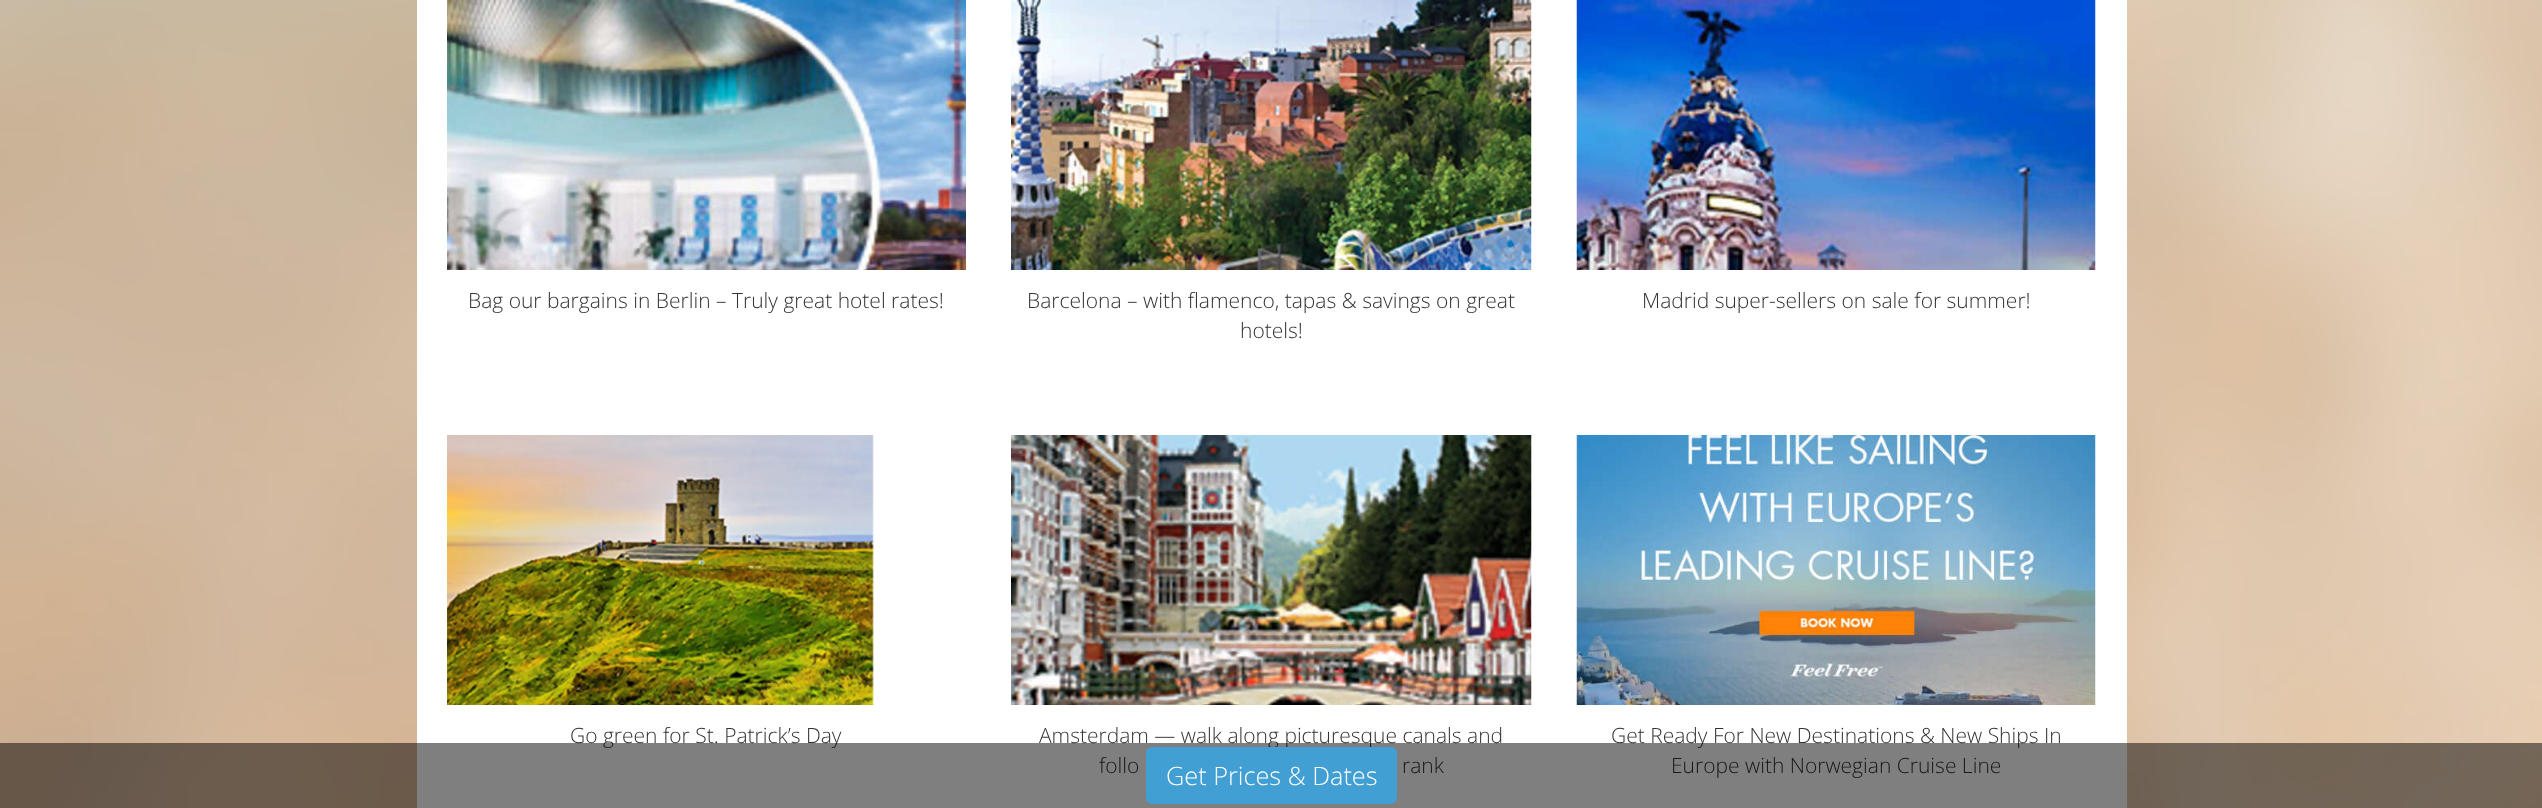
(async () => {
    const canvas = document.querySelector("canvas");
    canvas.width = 2542;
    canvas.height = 808;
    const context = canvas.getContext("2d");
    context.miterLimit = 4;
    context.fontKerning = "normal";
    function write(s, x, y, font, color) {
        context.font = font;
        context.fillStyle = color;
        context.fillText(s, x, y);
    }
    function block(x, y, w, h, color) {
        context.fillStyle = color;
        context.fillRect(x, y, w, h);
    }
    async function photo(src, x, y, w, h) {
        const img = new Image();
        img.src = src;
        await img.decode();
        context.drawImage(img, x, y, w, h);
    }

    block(0, 0, 2542, 808, "rgb(255, 255, 255)");
    await photo("media/1.png", 0, 0, 2542, 808);
    block(417, 0, 1710, 808, "rgb(255, 255, 255)");
    await photo("media/2.png", 447, 0, 519, 270);
    write("Bag our bargains in Berlin – Truly great hotel rates!", 468, 308, "300 21px Open Sans", "rgb(51, 51, 51)");
    await photo("media/3.png", 1011, 0, 521, 270);
    write("Barcelona – with flamenco, tapas & savings on great", 1027, 308, "300 21px Open Sans", "rgb(51, 51, 51)");
    write("hotels!", 1240, 338, "300 21px Open Sans", "rgb(51, 51, 51)");
    await photo("media/4.png", 1576, 0, 520, 270);
    write("Madrid super-sellers on sale for summer!", 1642, 308, "300 21px Open Sans", "rgb(51, 51, 51)");
    await photo("media/5.png", 447, 435, 427, 270);
    write("Go green for St. Patrick’s Day", 570, 743, "300 21px Open Sans", "rgb(51, 51, 51)");
    await photo("media/6.png", 1011, 435, 521, 270);
    write("Amsterdam — walk along picturesque canals and", 1039, 743, "300 21px Open Sans", "rgb(51, 51, 51)");
    write("follo", 1099, 773, "300 21px Open Sans", "rgb(51, 51, 51)");
    write("rank", 1402, 773, "300 21px Open Sans", "rgb(51, 51, 51)");
    await photo("media/7.png", 1576, 435, 520, 270);
    write("Get Ready For New Destinations & New Ships In", 1611, 743, "300 21px Open Sans", "rgb(51, 51, 51)");
    write("Europe with Norwegian Cruise Line", 1671, 773, "300 21px Open Sans", "rgb(51, 51, 51)");
    block(0, 743, 2542, 65, "rgba(0, 0, 0, 0.5)");
    context.fillStyle = "rgb(65, 159, 212)";
    context.beginPath();
    context.roundRect(1147, 748, 249, 55, 5);
    context.fill();
    context.strokeStyle = "rgb(65, 159, 212)";
    context.lineWidth = 2;
    context.stroke();
    write("Get Prices & Dates", 1166, 785, "300 25.25px Open Sans", "rgb(255, 255, 255)");
})();
